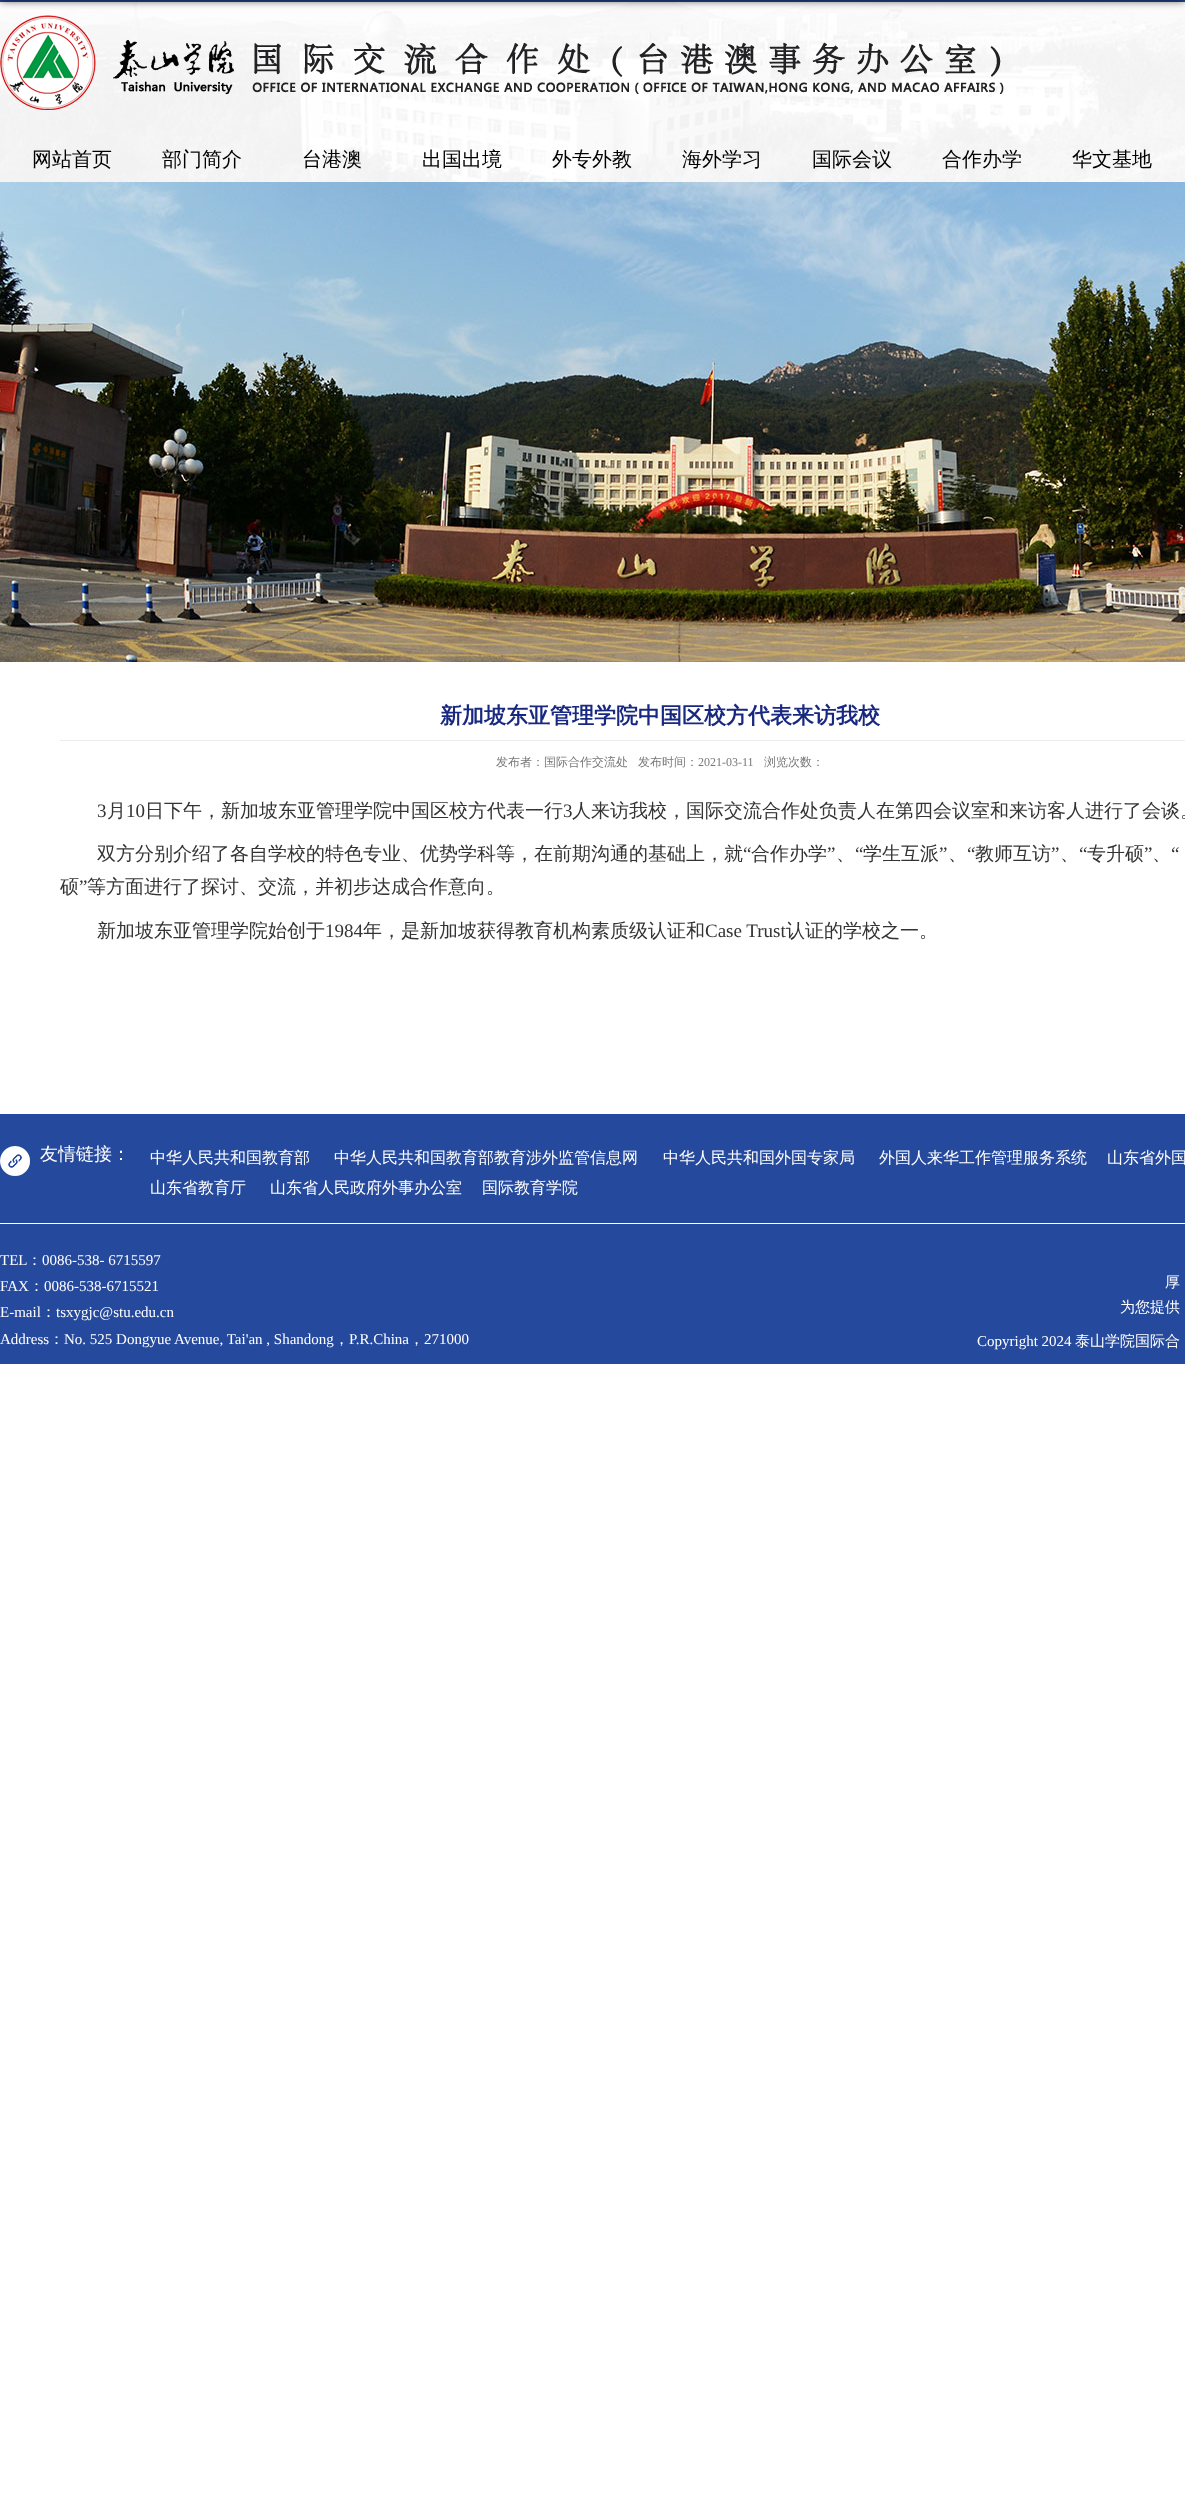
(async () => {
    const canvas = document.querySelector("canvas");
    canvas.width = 1185;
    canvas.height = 2500;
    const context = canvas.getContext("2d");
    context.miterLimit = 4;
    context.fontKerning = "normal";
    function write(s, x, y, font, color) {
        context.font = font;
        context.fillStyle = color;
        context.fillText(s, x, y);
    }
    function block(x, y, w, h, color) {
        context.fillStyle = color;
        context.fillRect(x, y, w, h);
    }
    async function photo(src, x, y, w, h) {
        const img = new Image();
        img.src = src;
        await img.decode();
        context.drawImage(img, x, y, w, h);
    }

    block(0, 0, 1185, 2500, "rgb(255, 255, 255)");
    await photo("media/1.png", 0, 2, 1185, 180);
    block(0, 0, 1185, 2, "rgb(37, 73, 157)");
    await photo("media/2.png", 0, 15, 1004, 95);
    context.fillStyle = "rgba(0, 0, 0, 0.8)";
    context.filter = "blur(5px)";
    context.beginPath();
    context.rect(0, -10, 1185, 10);
    context.fill();
    context.filter = "none";
    write("网站首页", 32, 166, "500 20px WenQuanYi Zen Hei", "rgb(0, 0, 0)");
    write("部门简介", 162, 166, "500 20px WenQuanYi Zen Hei", "rgb(0, 0, 0)");
    write("台港澳", 302, 166, "500 20px WenQuanYi Zen Hei", "rgb(0, 0, 0)");
    write("出国出境", 422, 166, "500 20px WenQuanYi Zen Hei", "rgb(0, 0, 0)");
    write("外专外教", 552, 166, "500 20px WenQuanYi Zen Hei", "rgb(0, 0, 0)");
    write("海外学习", 682, 166, "500 20px WenQuanYi Zen Hei", "rgb(0, 0, 0)");
    write("国际会议", 812, 166, "500 20px WenQuanYi Zen Hei", "rgb(0, 0, 0)");
    write("合作办学", 942, 166, "500 20px WenQuanYi Zen Hei", "rgb(0, 0, 0)");
    write("华文基地", 1072, 166, "500 20px WenQuanYi Zen Hei", "rgb(0, 0, 0)");
    await photo("media/3.png", 0, 182, 1185, 480);
    write("新加坡东亚管理学院中国区校方代表来访我校", 440, 723, "bold 22px WenQuanYi Zen Hei", "rgb(24, 40, 128)");
    block(60, 740, 1125, 1, "rgb(236, 236, 236)");
    write("发布者：国际合作交流处", 496, 766, "500 12px WenQuanYi Zen Hei", "rgb(120, 120, 120)");
    write("发布时间：", 638, 766, "500 12px WenQuanYi Zen Hei", "rgb(120, 120, 120)");
    write("2021-03-11", 698, 766, "12px Liberation Serif", "rgb(120, 120, 120)");
    write("浏览次数：", 764, 766, "500 12px WenQuanYi Zen Hei", "rgb(120, 120, 120)");
    write("3", 97, 817, "19px Liberation Serif", "rgb(51, 51, 51)");
    write("月", 107, 817, "500 19px WenQuanYi Zen Hei", "rgb(51, 51, 51)");
    write("10", 126, 817, "19px Liberation Serif", "rgb(51, 51, 51)");
    write("日下午，新加坡东亚管理学院中国区校方代表一行", 145, 817, "500 19px WenQuanYi Zen Hei", "rgb(51, 51, 51)");
    write("3", 563, 817, "19px Liberation Serif", "rgb(51, 51, 51)");
    write("人来访我校，国际交流合作处负责人在第四会议室和来访客人进行了会谈。", 572, 817, "500 19px WenQuanYi Zen Hei", "rgb(51, 51, 51)");
    write("双方分别介绍了各自学校的特色专业、优势学科等，在前期沟通的基础上，就", 97, 860, "500 19px WenQuanYi Zen Hei", "rgb(51, 51, 51)");
    write("“", 743, 860, "19px Liberation Serif", "rgb(51, 51, 51)");
    write("合作办学", 751, 860, "500 19px WenQuanYi Zen Hei", "rgb(51, 51, 51)");
    write("”", 827, 860, "19px Liberation Serif", "rgb(51, 51, 51)");
    write("“", 855, 860, "19px Liberation Serif", "rgb(51, 51, 51)");
    write("学生互派", 863, 860, "500 19px WenQuanYi Zen Hei", "rgb(51, 51, 51)");
    write("”", 939, 860, "19px Liberation Serif", "rgb(51, 51, 51)");
    write("“", 967, 860, "19px Liberation Serif", "rgb(51, 51, 51)");
    write("教师互访", 975, 860, "500 19px WenQuanYi Zen Hei", "rgb(51, 51, 51)");
    write("”", 1051, 860, "19px Liberation Serif", "rgb(51, 51, 51)");
    write("“", 1079, 860, "19px Liberation Serif", "rgb(51, 51, 51)");
    write("专升硕", 1087, 860, "500 19px WenQuanYi Zen Hei", "rgb(51, 51, 51)");
    write("”", 1144, 860, "19px Liberation Serif", "rgb(51, 51, 51)");
    write("“", 1171, 860, "19px Liberation Serif", "rgb(51, 51, 51)");
    write("、", 836, 860, "500 19px WenQuanYi Zen Hei", "rgb(51, 51, 51)");
    write("、", 948, 860, "500 19px WenQuanYi Zen Hei", "rgb(51, 51, 51)");
    write("、", 1060, 860, "500 19px WenQuanYi Zen Hei", "rgb(51, 51, 51)");
    write("、", 1152, 860, "500 19px WenQuanYi Zen Hei", "rgb(51, 51, 51)");
    write("硕", 60, 893, "500 19px WenQuanYi Zen Hei", "rgb(51, 51, 51)");
    write("”", 79, 893, "19px Liberation Serif", "rgb(51, 51, 51)");
    write("等方面进行了探讨、交流，并初步达成合作意向。", 87, 893, "500 19px WenQuanYi Zen Hei", "rgb(51, 51, 51)");
    write("新加坡东亚管理学院始创于", 97, 937, "500 19px WenQuanYi Zen Hei", "rgb(51, 51, 51)");
    write("1984", 325, 937, "19px Liberation Serif", "rgb(51, 51, 51)");
    write("年，是新加坡获得教育机构素质级认证和", 363, 937, "500 19px WenQuanYi Zen Hei", "rgb(51, 51, 51)");
    write("Case Trust", 705, 937, "19px Liberation Serif", "rgb(51, 51, 51)");
    write("认证的学校之一。", 786, 937, "500 19px WenQuanYi Zen Hei", "rgb(51, 51, 51)");
    block(0, 1114, 1185, 250, "rgb(37, 73, 157)");
    await photo("media/4.png", 0, 1146, 30, 30);
    write("友情链接：", 40, 1160, "500 18px WenQuanYi Zen Hei", "rgb(255, 255, 255)");
    write("中华人民共和国教育部", 150, 1163, "500 16px WenQuanYi Zen Hei", "rgb(255, 255, 255)");
    write("中华人民共和国教育部教育涉外监管信息网", 334, 1163, "500 16px WenQuanYi Zen Hei", "rgb(255, 255, 255)");
    write("中华人民共和国外国专家局", 663, 1163, "500 16px WenQuanYi Zen Hei", "rgb(255, 255, 255)");
    write("外国人来华工作管理服务系统", 879, 1163, "500 16px WenQuanYi Zen Hei", "rgb(255, 255, 255)");
    write("山东省外国", 1107, 1163, "500 16px WenQuanYi Zen Hei", "rgb(255, 255, 255)");
    write("山东省教育厅", 150, 1193, "500 16px WenQuanYi Zen Hei", "rgb(255, 255, 255)");
    write("山东省人民政府外事办公室", 270, 1193, "500 16px WenQuanYi Zen Hei", "rgb(255, 255, 255)");
    write("国际教育学院", 482, 1193, "500 16px WenQuanYi Zen Hei", "rgb(255, 255, 255)");
    block(0, 1223, 1185, 1, "rgb(255, 255, 255)");
    write("TEL", 0, 1265, "15px Liberation Serif", "rgb(255, 255, 255)");
    write("：", 27, 1265, "500 15px WenQuanYi Zen Hei", "rgb(255, 255, 255)");
    write("0086-538- 6715597", 42, 1265, "15px Liberation Serif", "rgb(255, 255, 255)");
    write("FAX", 0, 1291, "15px Liberation Serif", "rgb(255, 255, 255)");
    write("：", 29, 1291, "500 15px WenQuanYi Zen Hei", "rgb(255, 255, 255)");
    write("0086-538-6715521", 44, 1291, "15px Liberation Serif", "rgb(255, 255, 255)");
    write("E-mail", 0, 1317, "15px Liberation Serif", "rgb(255, 255, 255)");
    write("：", 41, 1317, "500 15px WenQuanYi Zen Hei", "rgb(255, 255, 255)");
    write("tsxygjc@stu.edu.cn", 56, 1317, "15px Liberation Serif", "rgb(255, 255, 255)");
    write("Address", 0, 1344, "15px Liberation Serif", "rgb(255, 255, 255)");
    write("：", 49, 1344, "500 15px WenQuanYi Zen Hei", "rgb(255, 255, 255)");
    write("No. 525 Dongyue Avenue, Tai'an , Shandong", 64, 1344, "15px Liberation Serif", "rgb(255, 255, 255)");
    write("，", 334, 1344, "500 15px WenQuanYi Zen Hei", "rgb(255, 255, 255)");
    write("P.R.China", 349, 1344, "15px Liberation Serif", "rgb(255, 255, 255)");
    write("，", 409, 1344, "500 15px WenQuanYi Zen Hei", "rgb(255, 255, 255)");
    write("271000", 424, 1344, "15px Liberation Serif", "rgb(255, 255, 255)");
    write("厚", 1165, 1287, "500 15px WenQuanYi Zen Hei", "rgb(255, 255, 255)");
    write("为您提供", 1120, 1312, "500 15px WenQuanYi Zen Hei", "rgb(255, 255, 255)");
    write("Copyright 2024", 977, 1346, "15px Liberation Serif", "rgb(255, 255, 255)");
    write("泰山学院国际合", 1075, 1346, "500 15px WenQuanYi Zen Hei", "rgb(255, 255, 255)");
})();
